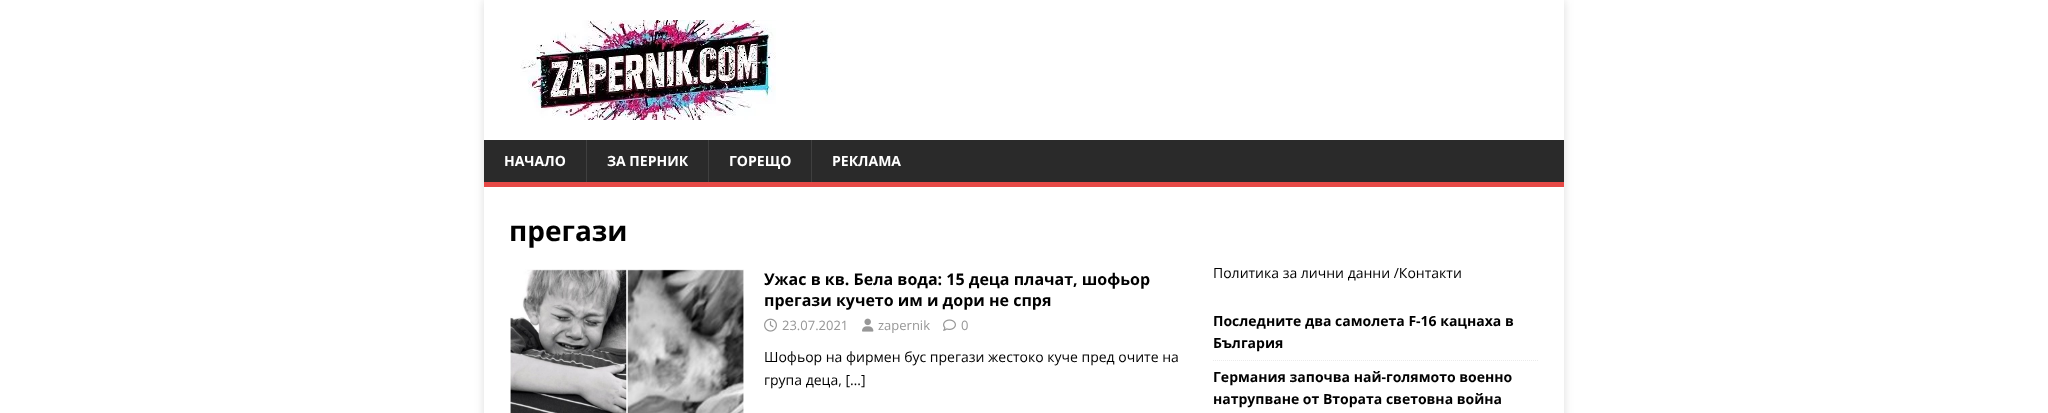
(async () => {
    const canvas = document.querySelector("canvas");
    canvas.width = 2048;
    canvas.height = 413;
    const context = canvas.getContext("2d");
    context.miterLimit = 4;
    context.fontKerning = "normal";
    function write(s, x, y, font, color) {
        context.font = font;
        context.fillStyle = color;
        context.fillText(s, x, y);
    }
    function block(x, y, w, h, color) {
        context.fillStyle = color;
        context.fillRect(x, y, w, h);
    }
    async function photo(src, x, y, w, h) {
        const img = new Image();
        img.src = src;
        await img.decode();
        context.drawImage(img, x, y, w, h);
    }

    block(0, 0, 2048, 413, "rgb(255, 255, 255)");
    context.save();
    context.beginPath();
    context.moveTo(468, 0);
    context.lineTo(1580, 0);
    context.lineTo(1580, 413);
    context.lineTo(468, 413);
    context.closePath();
    context.moveTo(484, 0);
    context.lineTo(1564, 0);
    context.lineTo(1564, 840);
    context.lineTo(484, 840);
    context.closePath();
    context.clip("evenodd");
    context.fillStyle = "rgba(50, 50, 50, 0.17)";
    context.filter = "blur(5px)";
    context.beginPath();
    context.rect(484, 0, 1080, 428);
    context.fill();
    context.filter = "none";
    context.restore();
    await photo("media/1.png", 520, 20, 256, 100);
    block(484, 140, 1080, 42, "rgb(42, 42, 42)");
    block(484, 182, 1080, 5, "rgb(230, 73, 70)");
    write("НАЧАЛО", 504, 166, "bold 14px Open Sans", "rgb(255, 255, 255)");
    block(586, 140, 1, 42, "rgb(63, 63, 63)");
    write("ЗА ПЕРНИК", 607, 166, "bold 14px Open Sans", "rgb(255, 255, 255)");
    block(708, 140, 1, 42, "rgb(63, 63, 63)");
    write("ГОРЕЩО", 729, 166, "bold 14px Open Sans", "rgb(255, 255, 255)");
    block(811, 140, 1, 42, "rgb(63, 63, 63)");
    write("РЕКЛАМА", 832, 166, "bold 14px Open Sans", "rgb(255, 255, 255)");
    write("прегази", 509, 241, "bold 28px Open Sans", "rgb(0, 0, 0)");
    await photo("media/2.png", 510, 269, 234, 144);
    write("Ужас в кв. Бела вода: 15 деца плачат, шофьор", 764, 285, "bold 16px Open Sans", "rgb(0, 0, 0)");
    write("прегази кучето им и дори не спря", 764, 306, "bold 16px Open Sans", "rgb(0, 0, 0)");
    await photo("media/3.png", 764, 318, 13, 14);
    write("23.07.2021", 782, 330, "13px Open Sans", "rgb(151, 151, 151)");
    await photo("media/4.png", 862, 318, 12, 14);
    write("zapernik", 878, 330, "13px Open Sans", "rgb(151, 151, 151)");
    await photo("media/5.png", 943, 319, 13, 12);
    write("0", 961, 330, "13px Open Sans", "rgb(151, 151, 151)");
    write("Шофьор на фирмен бус прегази жестоко куче пред очите на", 764, 362, "14px Open Sans", "rgb(0, 0, 0)");
    write("група деца, […]", 764, 385, "14px Open Sans", "rgb(0, 0, 0)");
    write("Политика за лични данни /Контакти", 1213, 278, "14px Open Sans", "rgb(0, 0, 0)");
    context.beginPath();
    context.moveTo(1213, 360.5);
    context.lineTo(1539, 360.5);
    context.strokeStyle = "rgb(235, 235, 235)";
    context.setLineDash([1, 1]);
    context.stroke();
    write("Последните два самолета F-16 кацнаха в", 1213, 326, "bold 14px Open Sans", "rgb(0, 0, 0)");
    write("България", 1213, 348, "bold 14px Open Sans", "rgb(0, 0, 0)");
    write("Германия започва най-голямото военно", 1213, 382, "bold 14px Open Sans", "rgb(0, 0, 0)");
    write("натрупване от Втората световна война", 1213, 404, "bold 14px Open Sans", "rgb(0, 0, 0)");
})();
